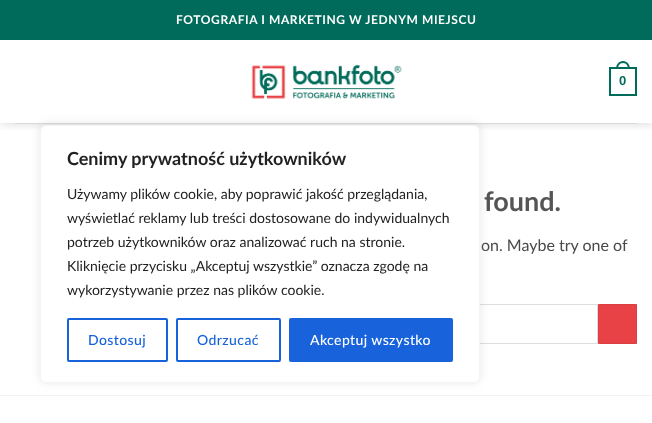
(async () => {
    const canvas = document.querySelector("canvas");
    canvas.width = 652;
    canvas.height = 423;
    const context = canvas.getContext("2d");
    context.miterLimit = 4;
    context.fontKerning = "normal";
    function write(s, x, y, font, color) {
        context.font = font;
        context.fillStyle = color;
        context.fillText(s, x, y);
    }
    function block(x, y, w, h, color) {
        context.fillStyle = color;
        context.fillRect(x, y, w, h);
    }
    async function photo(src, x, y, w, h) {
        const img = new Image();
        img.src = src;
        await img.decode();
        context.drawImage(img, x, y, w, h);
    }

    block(0, 0, 652, 423, "rgb(255, 255, 255)");
    context.save();
    context.beginPath();
    context.rect(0, 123, 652, 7);
    context.clip();
    context.fillStyle = "rgba(0, 0, 0, 0.15)";
    context.filter = "blur(5px)";
    context.beginPath();
    context.rect(1, 1, 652, 123);
    context.fill();
    context.filter = "none";
    context.restore();
    block(0, 0, 652, 40, "rgb(0, 107, 91)");
    context.letterSpacing = "0.6px";
    write("FOTOGRAFIA I MARKETING W JEDNYM MIEJSCU", 176, 24, "bold 12px Lato", "rgb(255, 255, 255)");
    await photo("media/1.png", 251, 64, 151, 35);
    context.strokeStyle = "rgb(0, 107, 91)";
    context.lineWidth = 2;
    context.strokeRect(610, 68, 26, 27);
    context.fillStyle = "rgb(0, 107, 91)";
    context.beginPath();
    context.moveTo(623, 61);
    context.bezierCurveTo(627.5, 61, 630, 65, 630, 69);
    context.lineTo(616, 69);
    context.bezierCurveTo(616, 65, 618.5, 61, 623, 61);
    context.closePath();
    context.moveTo(623, 63);
    context.bezierCurveTo(626.5, 63, 628, 66, 628, 69);
    context.lineTo(618, 69);
    context.bezierCurveTo(618, 66, 619.5, 63, 623, 63);
    context.closePath();
    context.fill("evenodd");
    context.letterSpacing = "0px";
    write("0", 619, 85, "bold 13px Liberation Sans", "rgb(0, 107, 91)");
    block(15, 123, 622, 1, "rgb(218, 218, 218)");
    write("found.", 484, 211, "bold 27px Lato", "rgb(85, 85, 85)");
    write("on. Maybe try one of", 481, 251, "16px Lato", "rgb(74, 74, 74)");
    context.strokeStyle = "rgb(221, 221, 221)";
    context.lineWidth = 1;
    context.strokeRect(178.5, 304.5, 419, 39);
    context.fillStyle = "rgb(232, 66, 70)";
    context.beginPath();
    context.rect(598.5, 304.5, 38, 39);
    context.fill();
    context.strokeStyle = "rgb(220, 63, 67)";
    context.stroke();
    block(0, 395, 652, 1, "rgb(242, 242, 242)");
    context.fillStyle = "rgba(172, 171, 171, 0.3)";
    context.filter = "blur(5px)";
    context.beginPath();
    context.roundRect(40, 124, 440, 258, 6);
    context.fill();
    context.filter = "none";
    context.fillStyle = "rgb(255, 255, 255)";
    context.beginPath();
    context.roundRect(40.5, 125.5, 439, 257, 5.5);
    context.fill();
    context.strokeStyle = "rgb(244, 244, 244)";
    context.stroke();
    write("Cenimy prywatność użytkowników", 67, 165, "bold 18px Lato", "rgb(33, 33, 33)");
    write("Używamy plików cookie, aby poprawić jakość przeglądania,", 67, 199, "14px Lato", "rgb(33, 33, 33)");
    write("wyświetlać reklamy lub treści dostosowane do indywidualnych", 67, 223, "14px Lato", "rgb(33, 33, 33)");
    write("potrzeb użytkowników oraz analizować ruch na stronie.", 67, 247, "14px Lato", "rgb(33, 33, 33)");
    write("Kliknięcie przycisku „Akceptuj wszystkie” oznacza zgodę na", 67, 271, "14px Lato", "rgb(33, 33, 33)");
    write("wykorzystywanie przez nas plików cookie.", 67, 295, "14px Lato", "rgb(33, 33, 33)");
    context.beginPath();
    context.roundRect(68, 319, 99, 42, 1);
    context.strokeStyle = "rgb(24, 99, 220)";
    context.lineWidth = 2;
    context.stroke();
    context.letterSpacing = "0.4px";
    write("Dostosuj", 88, 345, "500 14px Lato", "rgb(24, 99, 220)");
    context.beginPath();
    context.roundRect(177, 319, 103, 42, 1);
    context.stroke();
    write("Odrzucać", 197, 345, "500 14px Lato", "rgb(24, 99, 220)");
    context.beginPath();
    context.roundRect(290, 319, 162, 42, 1);
    context.fill();
    context.stroke();
    write("Akceptuj wszystko", 310, 345, "500 14px Lato", "rgb(255, 255, 255)");
})();
